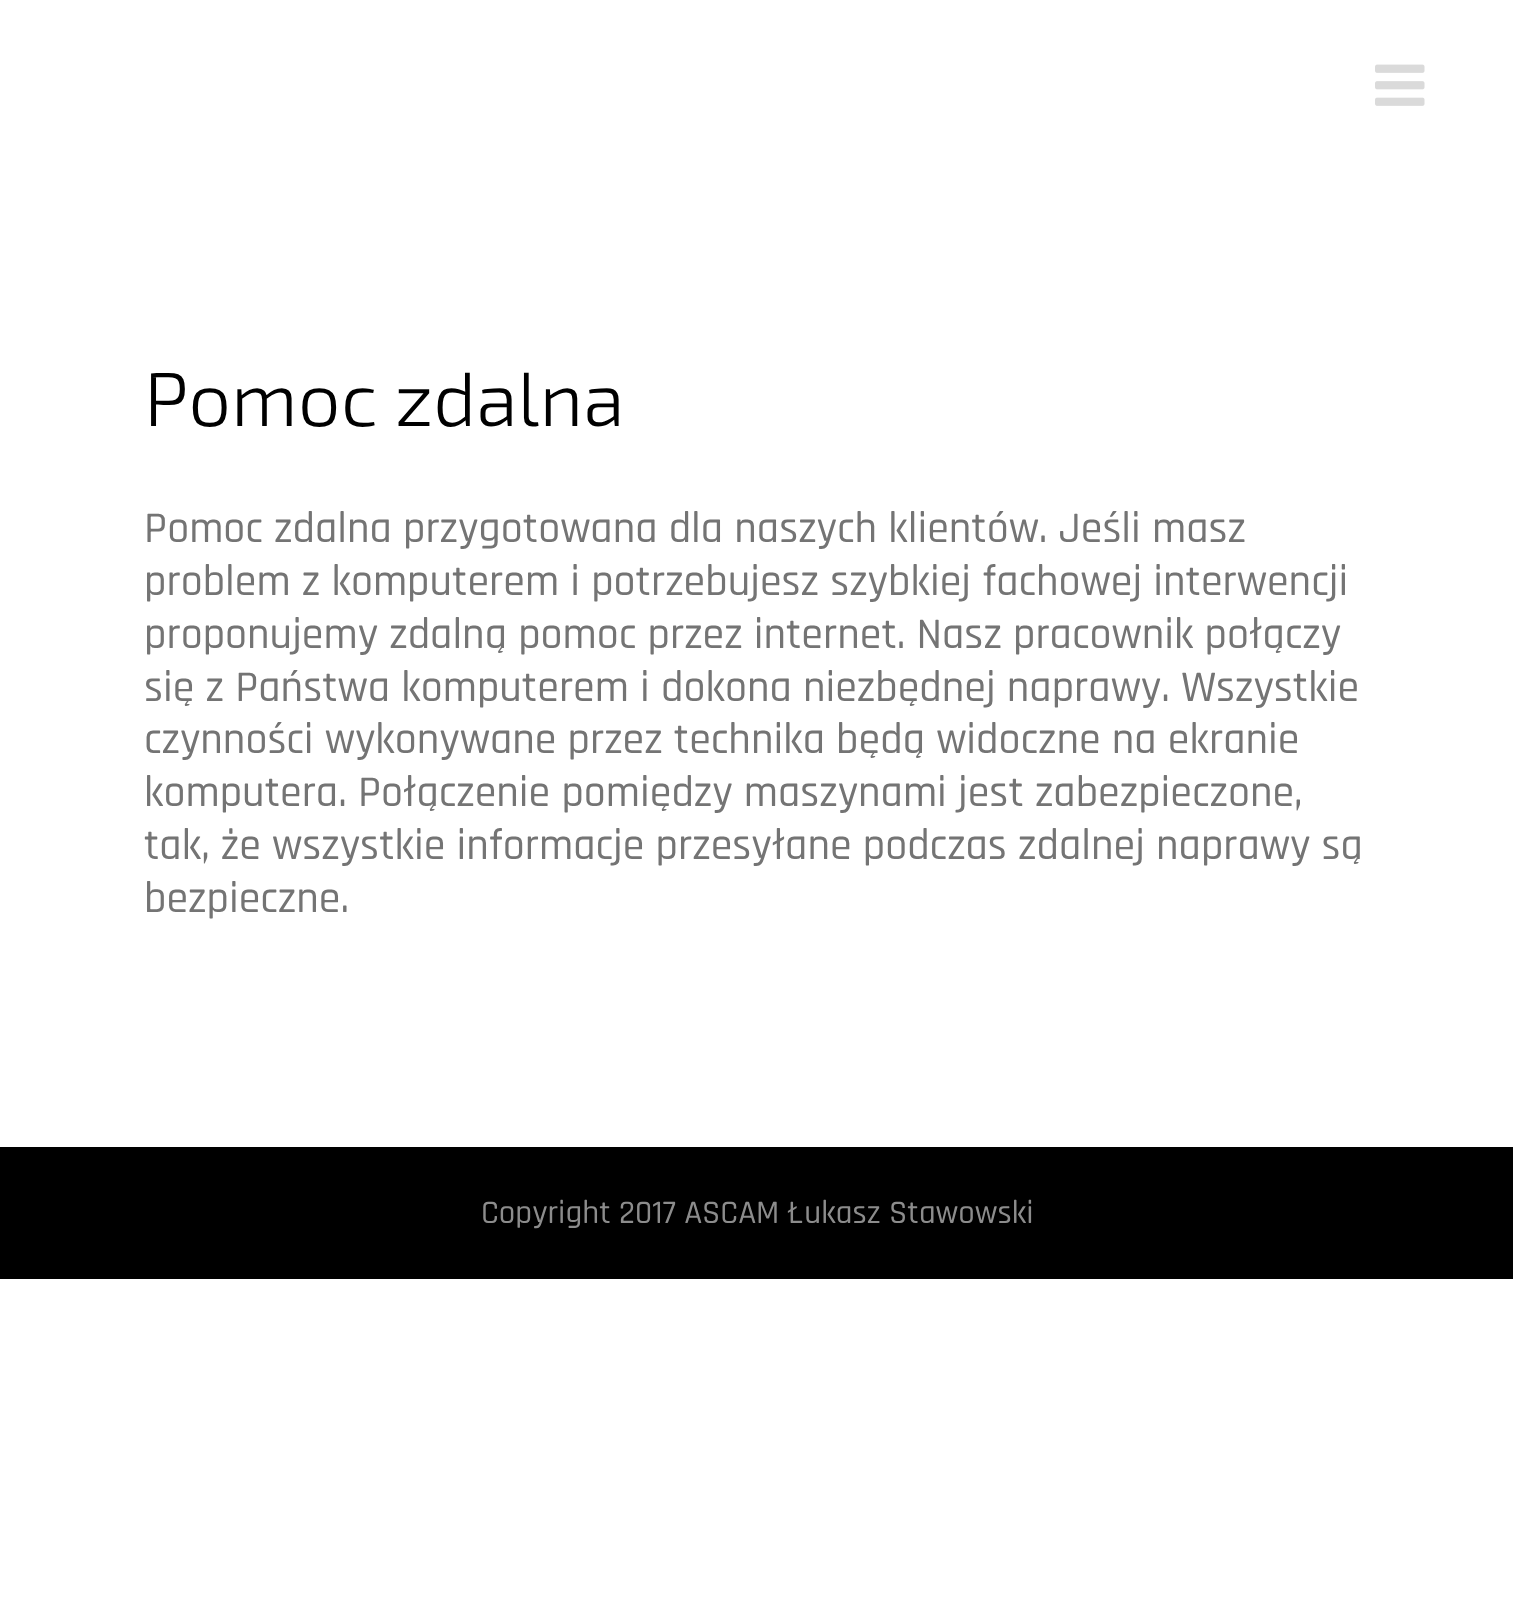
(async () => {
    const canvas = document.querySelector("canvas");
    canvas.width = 1513;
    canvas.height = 1622;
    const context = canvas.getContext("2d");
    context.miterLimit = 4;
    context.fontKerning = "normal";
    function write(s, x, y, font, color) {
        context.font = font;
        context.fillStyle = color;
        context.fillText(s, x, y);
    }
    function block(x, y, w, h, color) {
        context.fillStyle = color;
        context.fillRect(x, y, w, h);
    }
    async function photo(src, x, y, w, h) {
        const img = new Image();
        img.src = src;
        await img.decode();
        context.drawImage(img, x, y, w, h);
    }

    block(0, 0, 1513, 1622, "rgb(255, 255, 255)");
    await photo("media/1.png", 1375, 64, 50, 42);
    write("Pomoc zdalna", 144, 426, "300 76px 'Exo 2'", "rgb(0, 0, 0)");
    write("Pomoc zdalna przygotowana dla naszych klientów. Jeśli masz", 144, 542, "500 44px Rajdhani", "rgb(116, 116, 116)");
    write("problem z komputerem i potrzebujesz szybkiej fachowej interwencji", 144, 595, "500 44px Rajdhani", "rgb(116, 116, 116)");
    write("proponujemy zdalną pomoc przez internet. Nasz pracownik połączy", 144, 648, "500 44px Rajdhani", "rgb(116, 116, 116)");
    write("się z Państwa komputerem i dokona niezbędnej naprawy. Wszystkie", 144, 701, "500 44px Rajdhani", "rgb(116, 116, 116)");
    write("czynności wykonywane przez technika będą widoczne na ekranie", 144, 753, "500 44px Rajdhani", "rgb(116, 116, 116)");
    write("komputera. Połączenie pomiędzy maszynami jest zabezpieczone,", 144, 806, "500 44px Rajdhani", "rgb(116, 116, 116)");
    write("tak, że wszystkie informacje przesyłane podczas zdalnej naprawy są", 144, 859, "500 44px Rajdhani", "rgb(116, 116, 116)");
    write("bezpieczne.", 144, 912, "500 44px Rajdhani", "rgb(116, 116, 116)");
    block(0, 1147, 1513, 132, "rgb(0, 0, 0)");
    write("Copyright 2017 ASCAM Łukasz Stawowski", 481, 1223, "500 33px Rajdhani", "rgb(140, 140, 140)");
})();
